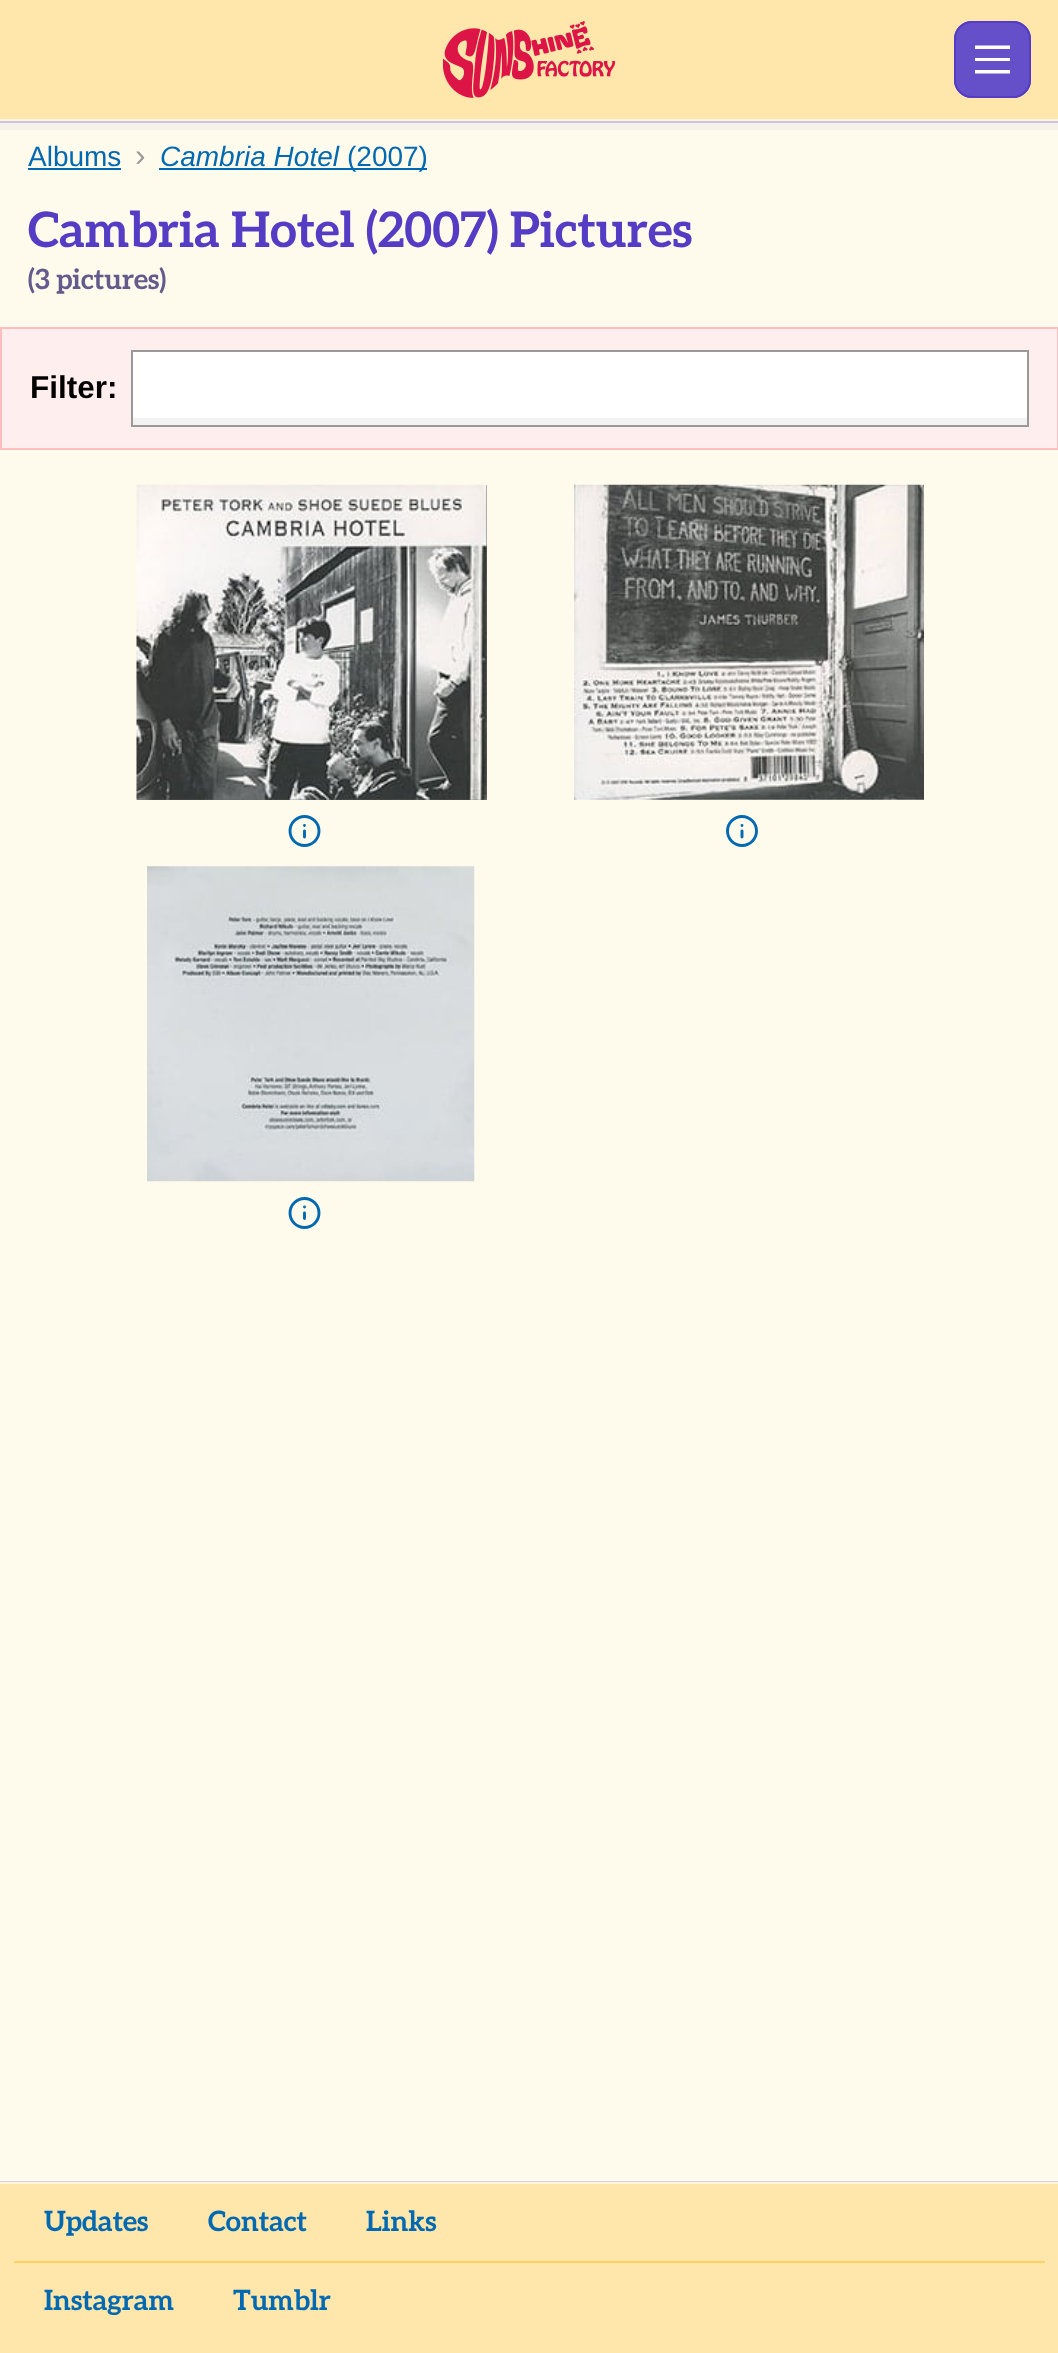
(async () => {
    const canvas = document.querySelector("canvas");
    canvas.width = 1058;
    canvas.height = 2353;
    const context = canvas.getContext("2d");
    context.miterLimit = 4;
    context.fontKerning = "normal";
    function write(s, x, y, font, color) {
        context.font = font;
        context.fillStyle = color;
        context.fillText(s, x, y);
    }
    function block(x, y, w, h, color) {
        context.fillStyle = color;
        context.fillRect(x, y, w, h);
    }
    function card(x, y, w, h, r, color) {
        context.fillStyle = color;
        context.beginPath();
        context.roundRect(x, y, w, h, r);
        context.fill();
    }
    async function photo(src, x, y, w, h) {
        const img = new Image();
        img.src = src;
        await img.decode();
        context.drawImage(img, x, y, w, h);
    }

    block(0, 0, 1058, 2353, "rgb(255, 251, 236)");
    context.strokeStyle = "rgb(246, 241, 234)";
    context.lineWidth = 11;
    context.strokeRect(-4.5, -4.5, 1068, 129);
    context.strokeStyle = "rgb(206, 196, 225)";
    context.lineWidth = 4;
    context.strokeRect(-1, -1, 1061, 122);
    context.strokeStyle = "rgb(255, 245, 220)";
    context.lineWidth = 2;
    context.strokeRect(-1, -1, 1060, 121);
    block(0, 0, 1058, 119, "rgb(255, 230, 170)");
    await photo("media/1.png", 443, 21, 173, 77);
    card(954, 21, 77, 77, 18, "rgb(101, 80, 202)");
    context.fillStyle = "rgb(255, 255, 255)";
    context.beginPath();
    context.moveTo(975, 45.5);
    context.lineTo(975, 49);
    context.lineTo(1010, 49);
    context.lineTo(1010, 45.5);
    context.closePath();
    context.moveTo(975, 58);
    context.lineTo(975, 61);
    context.lineTo(1010, 61);
    context.lineTo(1010, 58);
    context.closePath();
    context.moveTo(975, 70);
    context.lineTo(975, 73.5);
    context.lineTo(1010, 73.5);
    context.lineTo(1010, 70);
    context.closePath();
    context.fill();
    context.beginPath();
    context.roundRect(955, 22, 75, 75, 17);
    context.strokeStyle = "rgb(84, 60, 196)";
    context.stroke();
    write("Albums", 28, 166, "28px Liberation Sans", "rgb(0, 105, 177)");
    block(28, 168, 93, 2, "rgb(0, 105, 177)");
    write("›", 135, 166, "31.5px Liberation Sans", "rgb(153, 153, 153)");
    write("Cambria Hotel", 160, 166, "italic 28px Liberation Sans", "rgb(0, 105, 177)");
    block(159, 168, 268, 2, "rgb(0, 105, 177)");
    write("(2007)", 347, 166, "28px Liberation Sans", "rgb(0, 105, 177)");
    write("Cambria Hotel (2007) Pictures", 28, 247, "bold 49px Aleo", "rgb(84, 60, 196)");
    write("(3 pictures)", 28, 289, "bold 28px Aleo", "rgb(99, 91, 140)");
    context.fillStyle = "rgb(255, 238, 238)";
    context.beginPath();
    context.rect(1, 328, 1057, 121);
    context.fill();
    context.strokeStyle = "rgb(255, 189, 189)";
    context.stroke();
    write("Filter:", 30, 398, "bold 31.5px Liberation Sans", "rgb(0, 0, 0)");
    block(133, 352, 894, 66, "rgb(255, 255, 255)");
    block(131, 418, 898, 7, "rgb(242, 242, 242)");
    context.strokeStyle = "rgb(153, 153, 153)";
    context.strokeRect(132, 351, 896, 75);
    block(137, 485, 350, 315, "rgb(102, 102, 102)");
    await photo("media/2.png", 136, 484, 351, 316);
    context.beginPath();
    context.arc(304.5, 831, 14.5, 0, Math.PI * 2);
    context.strokeStyle = "rgb(0, 105, 177)";
    context.lineWidth = 2.9;
    context.stroke();
    context.beginPath();
    context.moveTo(304.5, 837);
    context.lineTo(304.5, 831);
    context.moveTo(304.5, 825.5);
    context.lineTo(304.5, 825.5);
    context.lineCap = "round";
    context.lineJoin = "round";
    context.stroke();
    await photo("media/3.png", 574, 484, 350, 316);
    context.beginPath();
    context.arc(742, 831, 14.5, 0, Math.PI * 2);
    context.stroke();
    context.beginPath();
    context.moveTo(742, 837);
    context.lineTo(742, 831);
    context.moveTo(742, 825.5);
    context.lineTo(742, 825.5);
    context.stroke();
    await photo("media/4.png", 147, 866, 328, 316);
    context.beginPath();
    context.arc(304.5, 1213, 14.5, 0, Math.PI * 2);
    context.stroke();
    context.beginPath();
    context.moveTo(304.5, 1218.5);
    context.lineTo(304.5, 1213);
    context.moveTo(304.5, 1207);
    context.lineTo(304.5, 1207);
    context.stroke();
    context.strokeStyle = "rgb(212, 203, 226)";
    context.lineWidth = 4;
    context.lineJoin = "miter";
    context.strokeRect(-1, 2183, 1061, 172);
    context.strokeStyle = "rgb(255, 245, 220)";
    context.lineWidth = 2;
    context.strokeRect(-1, 2183, 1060, 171);
    block(0, 2184, 1058, 169, "rgb(255, 230, 170)");
    write("Updates", 44, 2231, "bold 28px Aleo", "rgb(0, 105, 177)");
    write("Contact", 208, 2231, "bold 28px Aleo", "rgb(0, 105, 177)");
    write("Links", 366, 2231, "bold 28px Aleo", "rgb(0, 105, 177)");
    block(14, 2261, 1031, 2, "rgb(255, 209, 101)");
    write("Instagram", 44, 2310, "bold 28px Aleo", "rgb(0, 105, 177)");
    write("Tumblr", 233, 2310, "bold 28px Aleo", "rgb(0, 105, 177)");
})();
